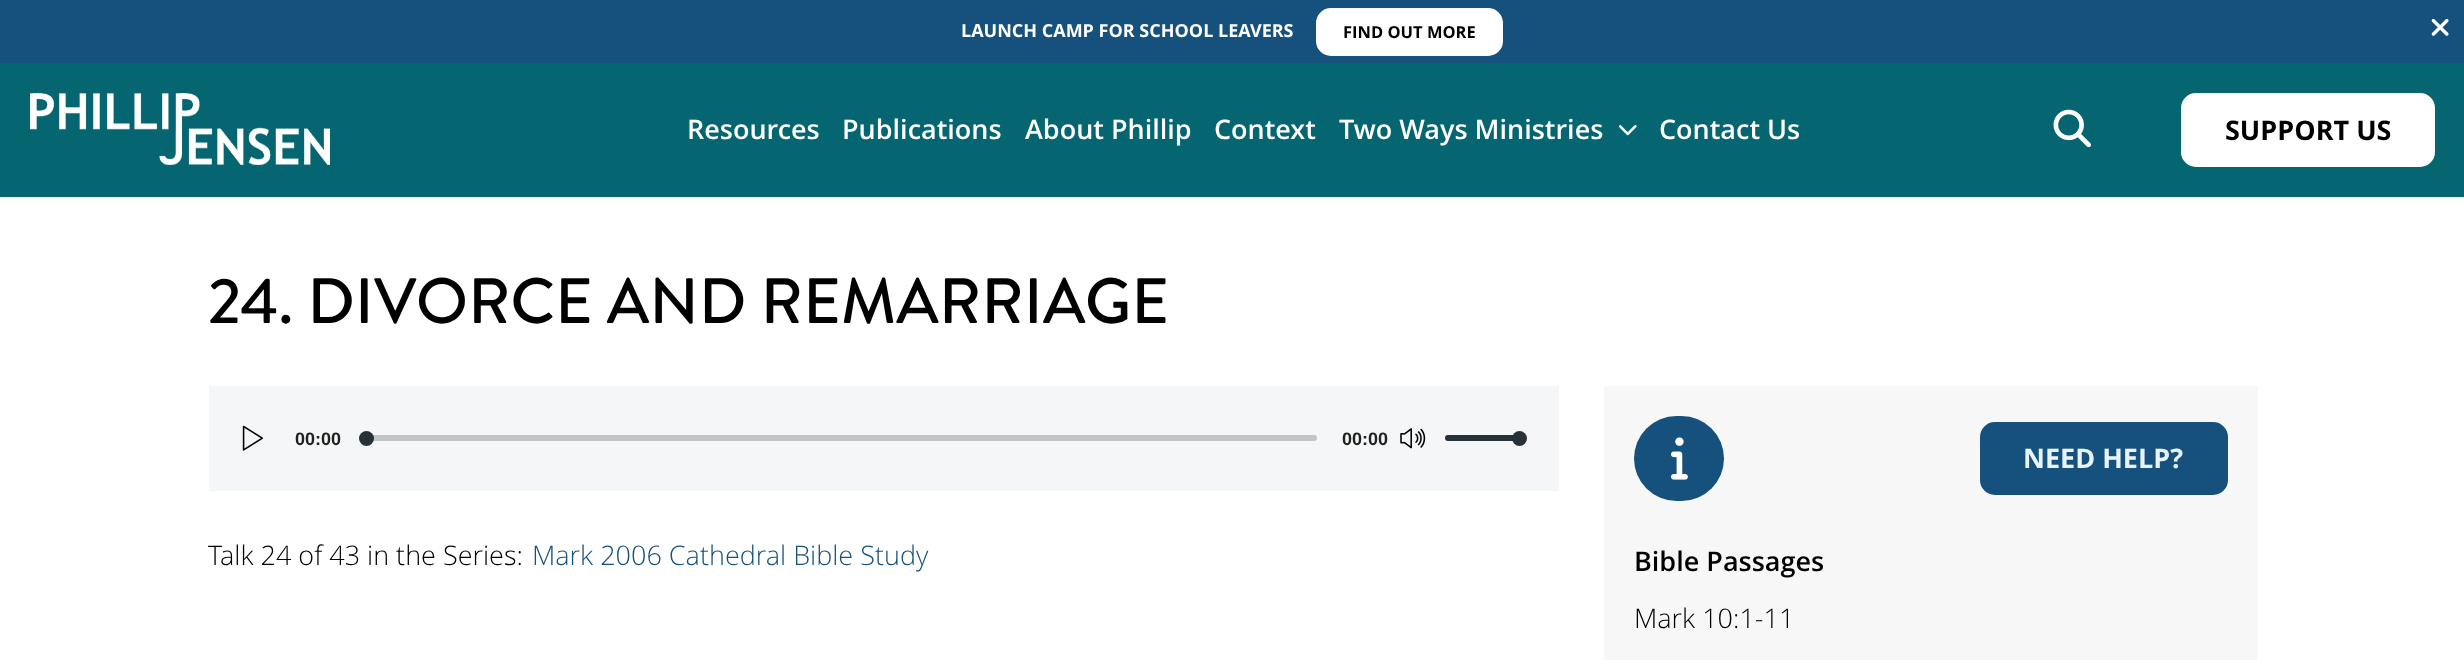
(async () => {
    const canvas = document.querySelector("canvas");
    canvas.width = 2464;
    canvas.height = 660;
    const context = canvas.getContext("2d");
    context.miterLimit = 4;
    context.fontKerning = "normal";
    function write(s, x, y, font, color) {
        context.font = font;
        context.fillStyle = color;
        context.fillText(s, x, y);
    }
    function block(x, y, w, h, color) {
        context.fillStyle = color;
        context.fillRect(x, y, w, h);
    }
    function card(x, y, w, h, r, color) {
        context.fillStyle = color;
        context.beginPath();
        context.roundRect(x, y, w, h, r);
        context.fill();
    }
    async function photo(src, x, y, w, h) {
        const img = new Image();
        img.src = src;
        await img.decode();
        context.drawImage(img, x, y, w, h);
    }

    block(0, 0, 2464, 660, "rgb(255, 255, 255)");
    block(0, 0, 2464, 63, "rgb(22, 81, 126)");
    write("LAUNCH CAMP FOR SCHOOL LEAVERS", 961, 37, "bold 18px Open Sans", "rgb(255, 255, 255)");
    context.beginPath();
    context.roundRect(1317.5, 9.5, 184, 45, 13.5);
    context.fill();
    context.strokeStyle = "rgb(255, 255, 255)";
    context.lineWidth = 3;
    context.stroke();
    write("FIND OUT MORE", 1343, 38, "bold 16.5px Open Sans", "rgb(0, 0, 0)");
    await photo("media/1.png", 2431, 19, 18, 17);
    block(0, 63, 2464, 134, "rgb(5, 102, 113)");
    await photo("media/2.png", 30, 93, 300, 72);
    write("Resources", 687, 139, "600 27px Open Sans", "rgb(255, 255, 255)");
    write("Publications", 842, 139, "600 27px Open Sans", "rgb(255, 255, 255)");
    write("About Phillip", 1025, 139, "600 27px Open Sans", "rgb(255, 255, 255)");
    write("Context", 1214, 139, "600 27px Open Sans", "rgb(255, 255, 255)");
    write("Two Ways Ministries", 1339, 139, "600 27px Open Sans", "rgb(255, 255, 255)");
    await photo("media/3.png", 1618, 125, 19, 11);
    write("Contact Us", 1659, 139, "600 27px Open Sans", "rgb(255, 255, 255)");
    await photo("media/4.png", 2053, 109, 38, 39);
    context.beginPath();
    context.roundRect(2182.5, 94.5, 251, 71, 13.5);
    context.fill();
    context.stroke();
    write("SUPPORT US", 2225, 140, "bold 27px Open Sans", "rgb(0, 0, 0)");
    write("24. DIVORCE AND REMARRIAGE", 208, 323, "500 64px Brandon Grotesque", "rgb(0, 0, 0)");
    block(209, 386, 1350, 105, "rgb(245, 246, 247)");
    await photo("media/5.png", 242, 425, 22, 26);
    write("00:00", 295, 445, "bold 18px Liberation Sans", "rgb(33, 33, 33)");
    card(365, 435, 952, 6, 3, "rgb(193, 197, 199)");
    context.fillStyle = "rgb(38, 50, 56)";
    context.beginPath();
    context.arc(366.5, 438.5, 7.5, 0, Math.PI * 2);
    context.fill();
    write("00:00", 1342, 445, "bold 18px Liberation Sans", "rgb(33, 33, 33)");
    await photo("media/6.png", 1400, 428, 26, 21);
    card(1445, 435, 75, 6, 3, "rgb(38, 50, 56)");
    context.beginPath();
    context.arc(1519.5, 438.5, 7.5, 0, Math.PI * 2);
    context.fill();
    write("Talk 24 of 43 in the Series:", 208, 565, "300 27px Open Sans", "rgb(0, 0, 0)");
    write("Mark 2006 Cathedral Bible Study", 532, 565, "300 27px Open Sans", "rgb(22, 81, 126)");
    block(1604, 386, 654, 274, "rgb(247, 247, 247)");
    card(1634, 416, 90, 85, 42.5, "rgb(22, 81, 126)");
    await photo("media/7.png", 1671, 437, 17, 43);
    context.beginPath();
    context.roundRect(1981.5, 423.5, 245, 70, 13.5);
    context.fill();
    context.strokeStyle = "rgb(22, 81, 126)";
    context.stroke();
    write("NEED HELP?", 2023, 468, "bold 27px Open Sans", "rgb(233, 243, 251)");
    write("Bible Passages", 1634, 571, "600 27px Open Sans", "rgb(0, 0, 0)");
    write("Mark 10:1-11", 1634, 628, "300 27px Open Sans", "rgb(0, 0, 0)");
})();
